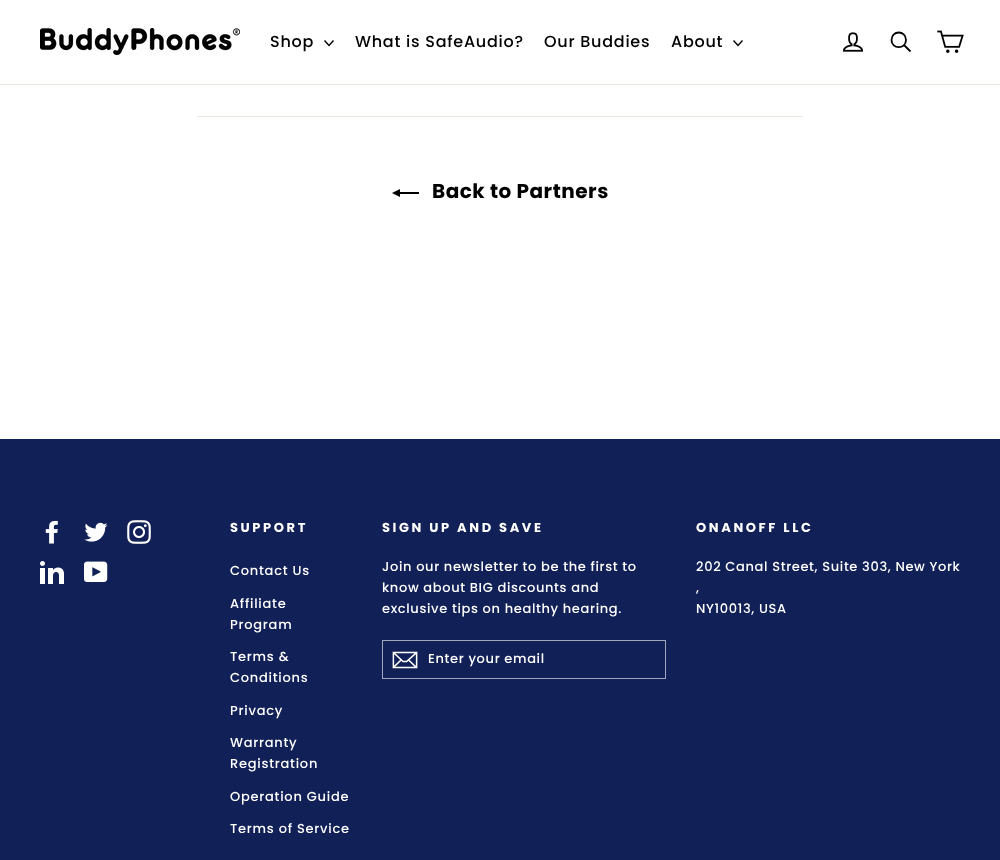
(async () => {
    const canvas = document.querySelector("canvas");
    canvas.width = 1000;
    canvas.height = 860;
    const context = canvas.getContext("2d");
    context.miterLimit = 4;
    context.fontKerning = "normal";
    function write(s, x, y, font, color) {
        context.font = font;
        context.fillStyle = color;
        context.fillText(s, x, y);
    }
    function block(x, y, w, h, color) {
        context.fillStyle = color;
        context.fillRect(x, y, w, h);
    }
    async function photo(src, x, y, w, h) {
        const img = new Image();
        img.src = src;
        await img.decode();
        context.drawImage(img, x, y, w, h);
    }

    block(0, 0, 1000, 860, "rgb(255, 255, 255)");
    block(0, 84, 1000, 1, "rgb(232, 232, 225)");
    await photo("media/1.png", 40, 28, 200, 27);
    context.letterSpacing = "0.75px";
    write("Shop", 270, 47, "500 16px Poppins", "rgb(0, 0, 0)");
    context.beginPath();
    context.moveTo(324.5, 40.5);
    context.lineTo(329, 45.5);
    context.lineTo(333.5, 40.5);
    context.strokeStyle = "rgb(0, 0, 0)";
    context.lineWidth = 1.4;
    context.stroke();
    write("What is SafeAudio?", 355, 47, "500 16px Poppins", "rgb(0, 0, 0)");
    write("Our Buddies", 544, 47, "500 16px Poppins", "rgb(0, 0, 0)");
    write("About", 671, 47, "500 16px Poppins", "rgb(0, 0, 0)");
    context.beginPath();
    context.moveTo(733.5, 40.5);
    context.lineTo(738, 45.5);
    context.lineTo(742.5, 40.5);
    context.stroke();
    await photo("media/2.png", 842, 32, 22, 20);
    context.beginPath();
    context.moveTo(906, 40);
    context.bezierCurveTo(906, 49.5, 891.5, 49.5, 891.5, 40);
    context.bezierCurveTo(891.5, 30, 906, 30, 906, 40);
    context.closePath();
    context.moveTo(910.5, 51.5);
    context.lineTo(904, 45);
    context.lineWidth = 1.8;
    context.stroke();
    await photo("media/3.png", 937, 30, 27, 23);
    block(198, 116, 604, 1, "rgb(232, 232, 225)");
    context.fillStyle = "rgb(0, 0, 0)";
    context.beginPath();
    context.moveTo(419, 192);
    context.lineTo(419, 194);
    context.lineTo(400, 194);
    context.lineTo(400, 197);
    context.lineTo(392, 193);
    context.lineTo(400, 189);
    context.lineTo(400, 192);
    context.closePath();
    context.fill();
    context.letterSpacing = "0.5px";
    write("Back to Partners", 432, 198, "bold 20px Poppins", "rgb(0, 0, 0)");
    block(0, 439, 1000, 421, "rgb(17, 32, 86)");
    await photo("media/4.png", 45, 520, 13, 24);
    await photo("media/5.png", 84, 522, 24, 20);
    await photo("media/6.png", 127, 520, 24, 24);
    await photo("media/7.png", 40, 561, 24, 23);
    await photo("media/8.png", 84, 561, 24, 21);
    context.letterSpacing = "2.6px";
    write("SUPPORT", 230, 532, "bold 13px Poppins", "rgb(255, 255, 255)");
    context.letterSpacing = "0.75px";
    write("Contact Us", 230, 575, "500 13px Poppins", "rgb(255, 255, 255)");
    write("Affiliate", 230, 608, "500 13px Poppins", "rgb(255, 255, 255)");
    write("Program", 230, 629, "500 13px Poppins", "rgb(255, 255, 255)");
    write("Terms &", 230, 661, "500 13px Poppins", "rgb(255, 255, 255)");
    write("Conditions", 230, 682, "500 13px Poppins", "rgb(255, 255, 255)");
    write("Privacy", 230, 715, "500 13px Poppins", "rgb(255, 255, 255)");
    write("Warranty", 230, 747, "500 13px Poppins", "rgb(255, 255, 255)");
    write("Registration", 230, 768, "500 13px Poppins", "rgb(255, 255, 255)");
    write("Operation Guide", 230, 801, "500 13px Poppins", "rgb(255, 255, 255)");
    write("Terms of Service", 230, 833, "500 13px Poppins", "rgb(255, 255, 255)");
    context.letterSpacing = "2.6px";
    write("SIGN UP AND SAVE", 382, 532, "bold 13px Poppins", "rgb(255, 255, 255)");
    context.letterSpacing = "0.65px";
    write("Join our newsletter to be the first to", 382, 571, "500 13px Poppins", "rgb(255, 255, 255)");
    write("know about BIG discounts and", 382, 592, "500 13px Poppins", "rgb(255, 255, 255)");
    write("exclusive tips on healthy hearing.", 382, 613, "500 13px Poppins", "rgb(255, 255, 255)");
    context.strokeStyle = "rgb(160, 166, 187)";
    context.lineWidth = 1;
    context.strokeRect(382.5, 640.5, 283, 38);
    await photo("media/9.png", 392, 651, 26, 18);
    write("Enter your email", 428, 663, "500 13px Poppins", "rgb(255, 255, 255)");
    context.letterSpacing = "2.6px";
    write("ONANOFF LLC", 696, 532, "bold 13px Poppins", "rgb(255, 255, 255)");
    context.letterSpacing = "0.65px";
    write("202 Canal Street, Suite 303, New York", 696, 571, "500 13px Poppins", "rgb(255, 255, 255)");
    write(",", 696, 592, "500 13px Poppins", "rgb(255, 255, 255)");
    write("NY10013, USA", 696, 613, "500 13px Poppins", "rgb(255, 255, 255)");
})();
